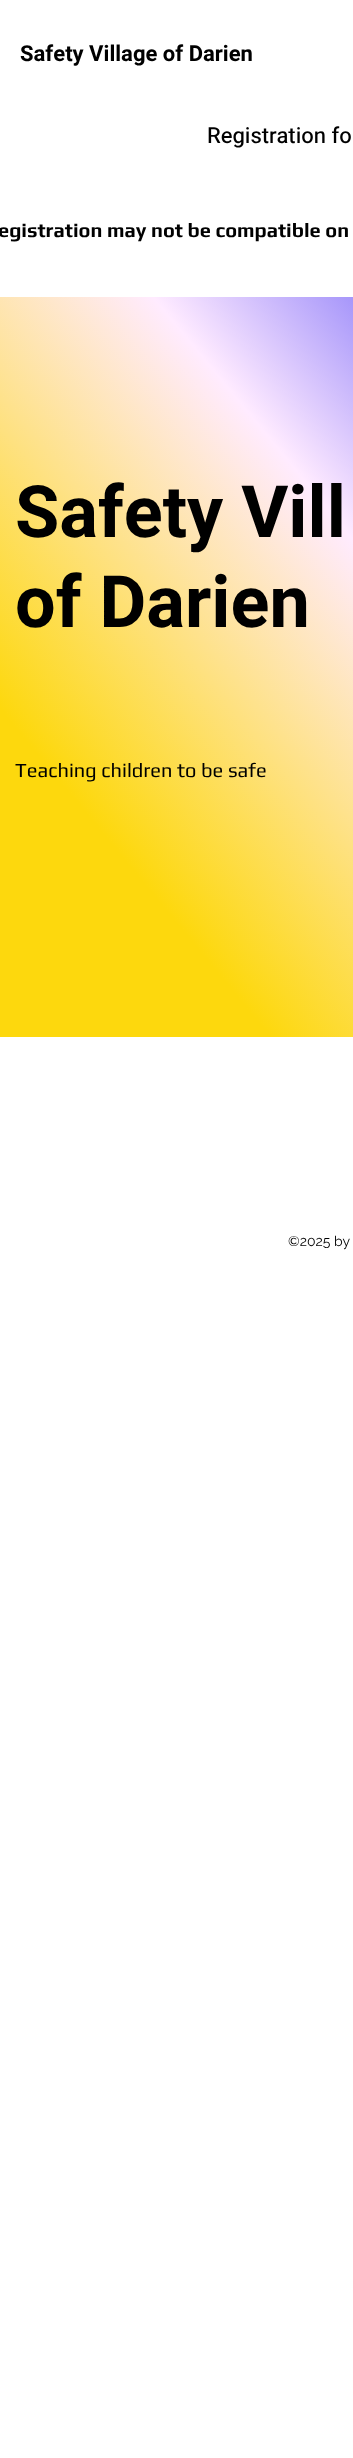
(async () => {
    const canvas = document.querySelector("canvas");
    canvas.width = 353;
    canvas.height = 2458;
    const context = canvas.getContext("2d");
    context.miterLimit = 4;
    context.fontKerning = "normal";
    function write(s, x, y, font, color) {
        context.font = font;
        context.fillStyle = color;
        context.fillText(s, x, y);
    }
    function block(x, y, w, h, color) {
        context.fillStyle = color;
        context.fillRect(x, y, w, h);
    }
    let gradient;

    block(0, 0, 353, 2458, "rgb(255, 255, 255)");
    write("Safety Village of Darien", 20, 61, "bold 22px Heebo", "rgb(0, 0, 0)");
    write("Registration fo", 207, 143, "500 22px Heebo", "rgb(0, 0, 0)");
    write("egistration may not be compatible on", -2, 237, "bold 20px Play", "rgb(0, 0, 0)");
    gradient = context.createLinearGradient(17, 1057, 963, 277);
    gradient.addColorStop(0.17, "rgb(253, 216, 13)");
    gradient.addColorStop(0.48, "rgb(255, 235, 255)");
    gradient.addColorStop(0.81, "rgb(23, 13, 242)");
    context.fillStyle = gradient;
    context.fillRect(0, 297, 353, 740);
    write("Safety Vill", 15, 537, "bold 72px Heebo", "rgb(0, 0, 0)");
    write("of Darien", 15, 627, "bold 72px Heebo", "rgb(0, 0, 0)");
    write("Teaching children to be safe", 15, 777, "20px Play", "rgb(0, 0, 0)");
    write("©2025 by", 288, 1246, "14px Raleway", "rgb(0, 0, 0)");
})();
